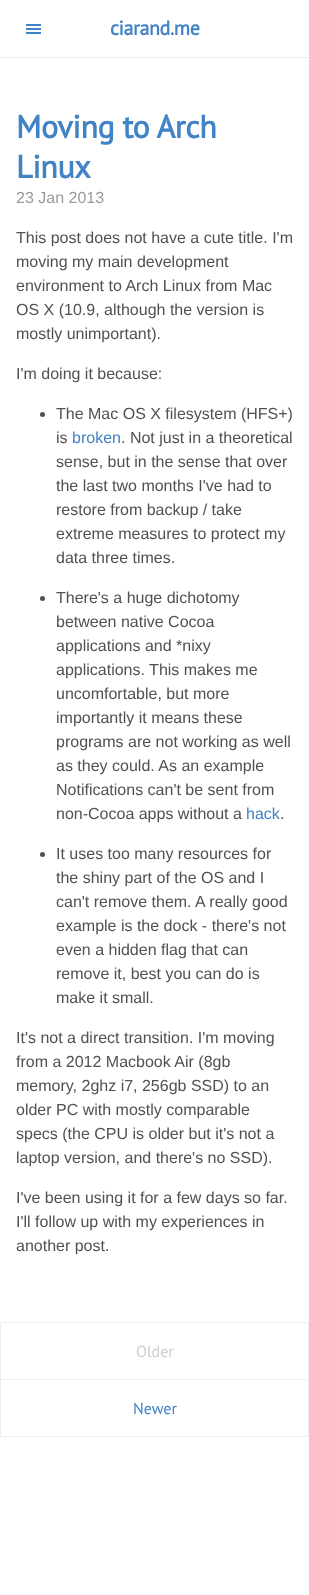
(async () => {
    const canvas = document.querySelector("canvas");
    canvas.width = 309;
    canvas.height = 1595;
    const context = canvas.getContext("2d");
    context.miterLimit = 4;
    context.fontKerning = "normal";
    function write(s, x, y, font, color) {
        context.font = font;
        context.fillStyle = color;
        context.fillText(s, x, y);
    }
    function block(x, y, w, h, color) {
        context.fillStyle = color;
        context.fillRect(x, y, w, h);
    }

    block(0, 0, 309, 1595, "rgb(255, 255, 255)");
    block(0, 57, 309, 1, "rgb(238, 238, 238)");
    context.letterSpacing = "-0.4px";
    write("ciarand.me", 110, 35, "bold 20px PT Sans", "rgb(65, 131, 196)");
    write("Moving to Arch", 16, 138, "bold 32px PT Sans", "rgb(65, 131, 196)");
    write("Linux", 16, 178, "bold 32px PT Sans", "rgb(65, 131, 196)");
    context.letterSpacing = "0px";
    write("23 Jan 2013", 16, 203, "16px Liberation Sans", "rgb(154, 154, 154)");
    write("This post does not have a cute title. I'm", 16, 243, "16px Liberation Sans", "rgb(81, 81, 81)");
    write("moving my main development", 16, 267, "16px Liberation Sans", "rgb(81, 81, 81)");
    write("environment to Arch Linux from Mac", 16, 291, "16px Liberation Sans", "rgb(81, 81, 81)");
    write("OS X (10.9, although the version is", 16, 315, "16px Liberation Sans", "rgb(81, 81, 81)");
    write("mostly unimportant).", 16, 339, "16px Liberation Sans", "rgb(81, 81, 81)");
    write("I'm doing it because:", 16, 379, "16px Liberation Sans", "rgb(81, 81, 81)");
    context.beginPath();
    context.arc(42.5, 414.5, 2.5, 0, Math.PI * 2);
    context.fill();
    write("The Mac OS X filesystem (HFS+)", 56, 419, "16px Liberation Sans", "rgb(81, 81, 81)");
    write("is", 56, 443, "16px Liberation Sans", "rgb(81, 81, 81)");
    write("broken", 72, 443, "16px Liberation Sans", "rgb(65, 131, 196)");
    write(". Not just in a theoretical", 121, 443, "16px Liberation Sans", "rgb(81, 81, 81)");
    write("sense, but in the sense that over", 56, 467, "16px Liberation Sans", "rgb(81, 81, 81)");
    write("the last two months I've had to", 56, 491, "16px Liberation Sans", "rgb(81, 81, 81)");
    write("restore from backup / take", 56, 515, "16px Liberation Sans", "rgb(81, 81, 81)");
    write("extreme measures to protect my", 56, 539, "16px Liberation Sans", "rgb(81, 81, 81)");
    write("data three times.", 56, 563, "16px Liberation Sans", "rgb(81, 81, 81)");
    context.beginPath();
    context.arc(42.5, 598.5, 2.5, 0, Math.PI * 2);
    context.fill();
    write("There's a huge dichotomy", 56, 603, "16px Liberation Sans", "rgb(81, 81, 81)");
    write("between native Cocoa", 56, 627, "16px Liberation Sans", "rgb(81, 81, 81)");
    write("applications and *nixy", 56, 651, "16px Liberation Sans", "rgb(81, 81, 81)");
    write("applications. This makes me", 56, 675, "16px Liberation Sans", "rgb(81, 81, 81)");
    write("uncomfortable, but more", 56, 699, "16px Liberation Sans", "rgb(81, 81, 81)");
    write("importantly it means these", 56, 723, "16px Liberation Sans", "rgb(81, 81, 81)");
    write("programs are not working as well", 56, 747, "16px Liberation Sans", "rgb(81, 81, 81)");
    write("as they could. As an example", 56, 771, "16px Liberation Sans", "rgb(81, 81, 81)");
    write("Notifications can't be sent from", 56, 795, "16px Liberation Sans", "rgb(81, 81, 81)");
    write("non-Cocoa apps without a", 56, 819, "16px Liberation Sans", "rgb(81, 81, 81)");
    write("hack", 246, 819, "16px Liberation Sans", "rgb(65, 131, 196)");
    write(".", 280, 819, "16px Liberation Sans", "rgb(81, 81, 81)");
    context.beginPath();
    context.arc(42.5, 854.5, 2.5, 0, Math.PI * 2);
    context.fill();
    write("It uses too many resources for", 56, 859, "16px Liberation Sans", "rgb(81, 81, 81)");
    write("the shiny part of the OS and I", 56, 883, "16px Liberation Sans", "rgb(81, 81, 81)");
    write("can't remove them. A really good", 56, 907, "16px Liberation Sans", "rgb(81, 81, 81)");
    write("example is the dock - there's not", 56, 931, "16px Liberation Sans", "rgb(81, 81, 81)");
    write("even a hidden flag that can", 56, 955, "16px Liberation Sans", "rgb(81, 81, 81)");
    write("remove it, best you can do is", 56, 979, "16px Liberation Sans", "rgb(81, 81, 81)");
    write("make it small.", 56, 1003, "16px Liberation Sans", "rgb(81, 81, 81)");
    write("It's not a direct transition. I'm moving", 16, 1043, "16px Liberation Sans", "rgb(81, 81, 81)");
    write("from a 2012 Macbook Air (8gb", 16, 1067, "16px Liberation Sans", "rgb(81, 81, 81)");
    write("memory, 2ghz i7, 256gb SSD) to an", 16, 1091, "16px Liberation Sans", "rgb(81, 81, 81)");
    write("older PC with mostly comparable", 16, 1115, "16px Liberation Sans", "rgb(81, 81, 81)");
    write("specs (the CPU is older but it's not a", 16, 1139, "16px Liberation Sans", "rgb(81, 81, 81)");
    write("laptop version, and there's no SSD).", 16, 1163, "16px Liberation Sans", "rgb(81, 81, 81)");
    write("I've been using it for a few days so far.", 16, 1203, "16px Liberation Sans", "rgb(81, 81, 81)");
    write("I'll follow up with my experiences in", 16, 1227, "16px Liberation Sans", "rgb(81, 81, 81)");
    write("another post.", 16, 1251, "16px Liberation Sans", "rgb(81, 81, 81)");
    context.strokeStyle = "rgb(238, 238, 238)";
    context.strokeRect(0.5, 1322.5, 308, 57);
    write("Older", 136, 1357, "16px PT Sans", "rgb(204, 204, 204)");
    context.strokeRect(0.5, 1379.5, 308, 57);
    write("Newer", 133, 1414, "16px PT Sans", "rgb(65, 131, 196)");
    block(26, 24, 15, 2, "rgb(65, 131, 196)");
    block(26, 28, 15, 2, "rgb(65, 131, 196)");
    block(26, 32, 15, 2, "rgb(65, 131, 196)");
})();
